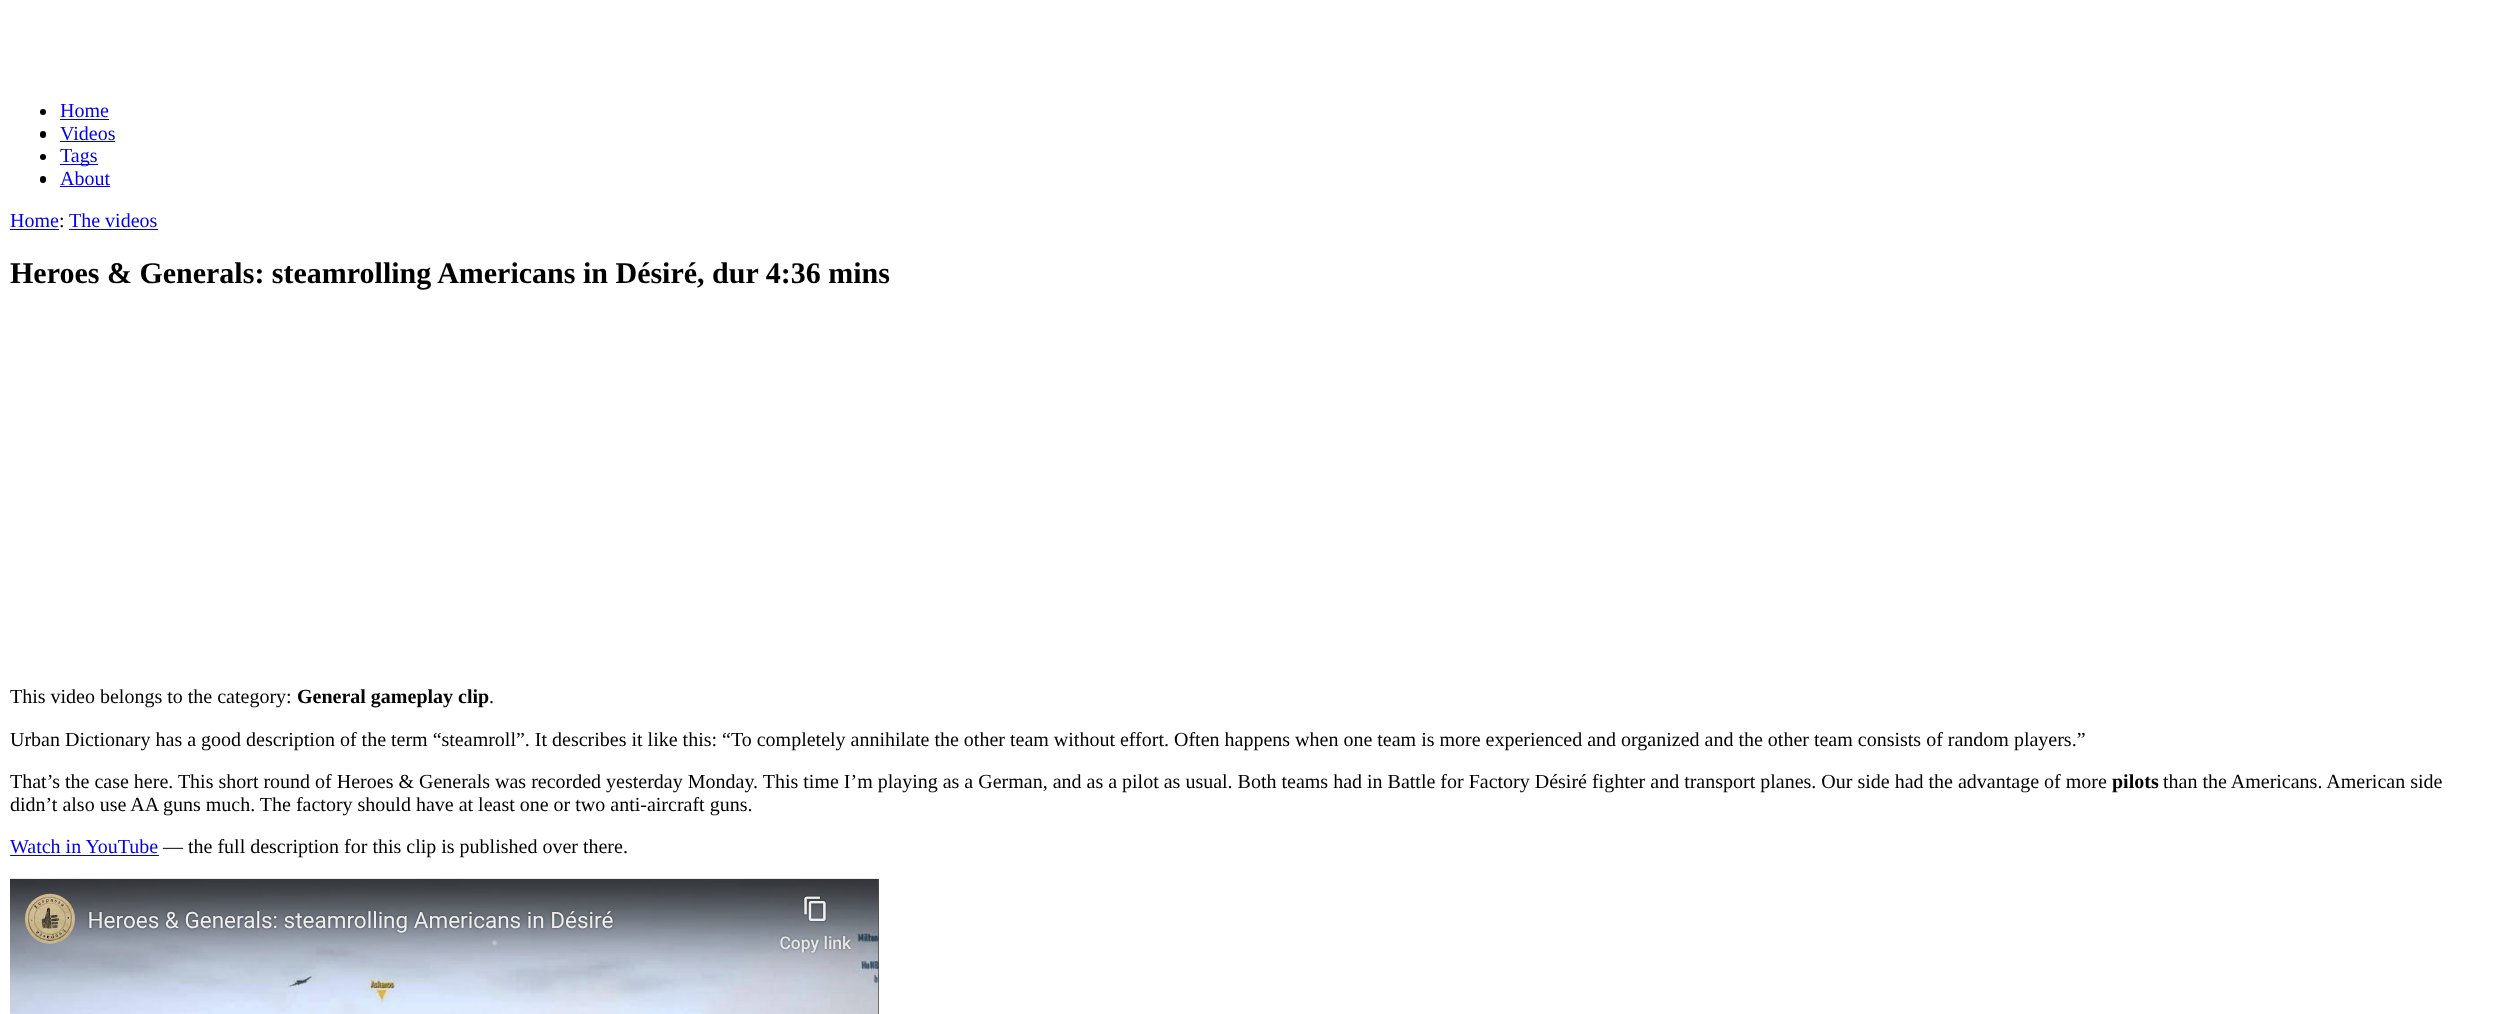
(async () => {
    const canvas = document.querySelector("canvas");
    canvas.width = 2499;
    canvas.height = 1014;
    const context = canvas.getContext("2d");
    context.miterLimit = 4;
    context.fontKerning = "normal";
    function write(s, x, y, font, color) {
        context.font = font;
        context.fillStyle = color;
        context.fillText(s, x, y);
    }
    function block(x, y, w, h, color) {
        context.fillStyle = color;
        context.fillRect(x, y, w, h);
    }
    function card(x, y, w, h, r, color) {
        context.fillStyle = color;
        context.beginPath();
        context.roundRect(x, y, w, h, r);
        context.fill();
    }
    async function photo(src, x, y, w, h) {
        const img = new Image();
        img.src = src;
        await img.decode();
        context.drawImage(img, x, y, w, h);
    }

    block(0, 0, 2499, 1014, "rgb(255, 255, 255)");
    context.fillStyle = "rgb(0, 0, 0)";
    context.beginPath();
    context.arc(43, 112, 3, 0, Math.PI * 2);
    context.fill();
    write("Home", 60, 117, "20px Liberation Serif", "rgb(0, 0, 238)");
    block(60, 119, 49, 1, "rgb(0, 0, 238)");
    card(40, 131, 6, 7, 3, "rgb(0, 0, 0)");
    write("Videos", 60, 140, "20px Liberation Serif", "rgb(0, 0, 238)");
    block(60, 141, 55, 1, "rgb(0, 0, 238)");
    context.fillStyle = "rgb(0, 0, 0)";
    context.beginPath();
    context.arc(43, 157, 3, 0, Math.PI * 2);
    context.fill();
    block(60, 164, 38, 1, "rgb(0, 0, 238)");
    write("Tags", 60, 162, "20px Liberation Serif", "rgb(0, 0, 238)");
    card(40, 176, 6, 7, 3, "rgb(0, 0, 0)");
    write("About", 60, 185, "20px Liberation Serif", "rgb(0, 0, 238)");
    block(60, 186, 50, 1, "rgb(0, 0, 238)");
    write("Home", 10, 227, "20px Liberation Serif", "rgb(0, 0, 238)");
    block(10, 229, 49, 1, "rgb(0, 0, 238)");
    write(":", 59, 227, "20px Liberation Serif", "rgb(0, 0, 0)");
    write("The videos", 69, 227, "20px Liberation Serif", "rgb(0, 0, 238)");
    block(69, 229, 89, 1, "rgb(0, 0, 238)");
    write("Heroes & Generals: steamrolling Americans in Désiré, dur 4:36 mins", 10, 283, "bold 30px Liberation Serif", "rgb(0, 0, 0)");
    write("This video belongs to the category:", 10, 703, "20px Liberation Serif", "rgb(0, 0, 0)");
    write("General gameplay clip", 297, 703, "bold 20px Liberation Serif", "rgb(0, 0, 0)");
    write(".", 489, 703, "20px Liberation Serif", "rgb(0, 0, 0)");
    write("Urban Dictionary has a good description of the term “steamroll”. It describes it like this: “To completely annihilate the other team without effort. Often happens when one team is more experienced and organized and the other team consists of random players.”", 10, 746, "20px Liberation Serif", "rgb(0, 0, 0)");
    write("That’s the case here. This short round of Heroes & Generals was recorded yesterday Monday. This time I’m playing as a German, and as a pilot as usual. Both teams had in Battle for Factory Désiré fighter and transport planes. Our side had the advantage of more", 10, 788, "20px Liberation Serif", "rgb(0, 0, 0)");
    write("pilots", 2112, 788, "bold 20px Liberation Serif", "rgb(0, 0, 0)");
    write("than the Americans. American side", 2163, 788, "20px Liberation Serif", "rgb(0, 0, 0)");
    write("didn’t also use AA guns much. The factory should have at least one or two anti-aircraft guns.", 10, 811, "20px Liberation Serif", "rgb(0, 0, 0)");
    write("Watch in YouTube", 10, 853, "20px Liberation Serif", "rgb(0, 0, 238)");
    block(10, 855, 149, 1, "rgb(0, 0, 238)");
    write("— the full description for this clip is published over there.", 163, 853, "20px Liberation Serif", "rgb(0, 0, 0)");
    await photo("media/1.png", 10, 878, 869, 136);
})();
